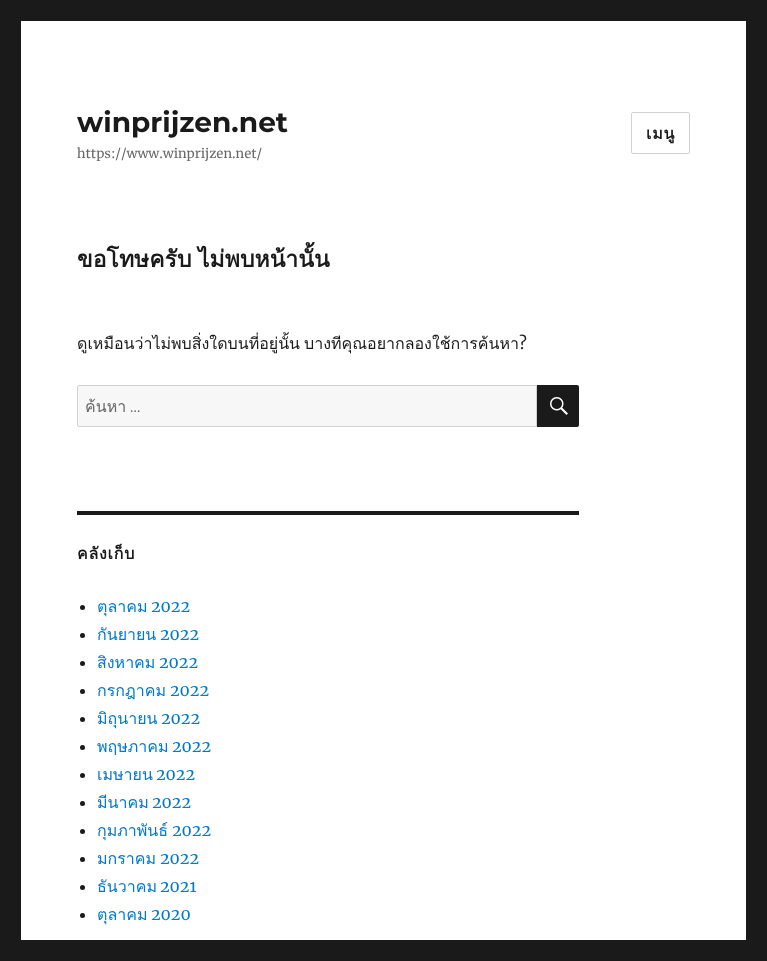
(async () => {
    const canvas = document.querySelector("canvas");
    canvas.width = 767;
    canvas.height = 961;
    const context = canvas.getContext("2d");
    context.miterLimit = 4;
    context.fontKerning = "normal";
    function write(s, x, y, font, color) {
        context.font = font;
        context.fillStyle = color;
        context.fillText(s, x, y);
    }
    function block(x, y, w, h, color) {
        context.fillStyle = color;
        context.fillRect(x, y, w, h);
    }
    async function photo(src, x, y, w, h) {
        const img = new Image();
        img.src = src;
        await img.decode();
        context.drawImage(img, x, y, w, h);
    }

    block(0, 0, 767, 961, "rgb(26, 26, 26)");
    block(21, 21, 725, 919, "rgb(255, 255, 255)");
    write("winprijzen.net", 77, 132, "100 28px Montserrat", "rgb(26, 26, 26)");
    context.save();
    context.beginPath();
    context.rect(77, 105, 211, 56);
    context.clip();
    write("https://www.winprijzen.net/", 77, 158, "13px Merriweather", "rgb(104, 104, 104)");
    context.restore();
    context.beginPath();
    context.roundRect(631.5, 112.5, 58, 41, 1.5);
    context.strokeStyle = "rgb(209, 209, 209)";
    context.stroke();
    context.letterSpacing = "0.75px";
    write("เมนู", 646, 139, "bold 16px Loma", "rgb(26, 26, 26)");
    context.letterSpacing = "0px";
    write("ขอโทษครับ", 77, 267, "bold 23px Loma", "rgb(26, 26, 26)");
    write("ไม่พบหน้านั้น", 198, 267, "bold 23px Loma", "rgb(26, 26, 26)");
    write("ดูเหมือนว่าไม่พบสิ่งใดบนที่อยู่นั้น", 77, 349, "16px Loma", "rgb(26, 26, 26)");
    write("บางทีคุณอยากลองใช้การค้นหา", 304, 349, "16px Loma", "rgb(26, 26, 26)");
    write("?", 519, 349, "16px Merriweather", "rgb(26, 26, 26)");
    context.fillStyle = "rgb(247, 247, 247)";
    context.beginPath();
    context.roundRect(77.5, 385.5, 459, 41, [1.5, 0, 0, 1.5]);
    context.fill();
    context.stroke();
    context.save();
    context.beginPath();
    context.rect(85, 394, 440, 25);
    context.clip();
    write("ค้นหา", 85, 412, "16px Loma", "rgb(104, 104, 104)");
    context.restore();
    write("…", 130, 412, "100 16px 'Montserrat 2'", "rgb(104, 104, 104)");
    context.fillStyle = "rgb(26, 26, 26)";
    context.beginPath();
    context.roundRect(537, 385, 42, 42, [0, 2, 2, 0]);
    context.fill();
    await photo("media/1.png", 550, 397, 18, 18);
    block(77, 511, 502, 4, "rgb(26, 26, 26)");
    context.letterSpacing = "0.75px";
    write("คลังเก็บ", 77, 559, "bold 16px Loma", "rgb(26, 26, 26)");
    context.beginPath();
    context.arc(82.5, 607.5, 2.5, 0, Math.PI * 2);
    context.fill();
    context.letterSpacing = "0px";
    write("ตุลาคม", 97, 612, "16px Loma", "rgb(0, 122, 204)");
    write("2022", 151, 612, "16px Merriweather", "rgb(0, 122, 204)");
    context.fillStyle = "rgb(26, 26, 26)";
    context.beginPath();
    context.arc(82.5, 635.5, 2.5, 0, Math.PI * 2);
    context.fill();
    write("กันยายน", 97, 640, "16px Loma", "rgb(0, 122, 204)");
    write("2022", 160, 640, "16px Merriweather", "rgb(0, 122, 204)");
    context.fillStyle = "rgb(26, 26, 26)";
    context.beginPath();
    context.arc(82.5, 663.5, 2.5, 0, Math.PI * 2);
    context.fill();
    write("สิงหาคม", 97, 668, "16px Loma", "rgb(0, 122, 204)");
    write("2022", 159, 668, "16px Merriweather", "rgb(0, 122, 204)");
    context.fillStyle = "rgb(26, 26, 26)";
    context.beginPath();
    context.arc(82.5, 691.5, 2.5, 0, Math.PI * 2);
    context.fill();
    write("กรกฎาคม", 97, 696, "16px Loma", "rgb(0, 122, 204)");
    write("2022", 170, 696, "16px Merriweather", "rgb(0, 122, 204)");
    context.fillStyle = "rgb(26, 26, 26)";
    context.beginPath();
    context.arc(82.5, 719.5, 2.5, 0, Math.PI * 2);
    context.fill();
    write("มิถุนายน", 97, 724, "16px Loma", "rgb(0, 122, 204)");
    write("2022", 161, 724, "16px Merriweather", "rgb(0, 122, 204)");
    context.fillStyle = "rgb(26, 26, 26)";
    context.beginPath();
    context.arc(82.5, 747.5, 2.5, 0, Math.PI * 2);
    context.fill();
    write("พฤษภาคม", 97, 752, "16px Loma", "rgb(0, 122, 204)");
    write("2022", 172, 752, "16px Merriweather", "rgb(0, 122, 204)");
    context.fillStyle = "rgb(26, 26, 26)";
    context.beginPath();
    context.arc(82.5, 775.5, 2.5, 0, Math.PI * 2);
    context.fill();
    write("เมษายน", 97, 780, "16px Loma", "rgb(0, 122, 204)");
    write("2022", 156, 780, "16px Merriweather", "rgb(0, 122, 204)");
    context.fillStyle = "rgb(26, 26, 26)";
    context.beginPath();
    context.arc(82.5, 803.5, 2.5, 0, Math.PI * 2);
    context.fill();
    write("มีนาคม", 97, 808, "16px Loma", "rgb(0, 122, 204)");
    write("2022", 152, 808, "16px Merriweather", "rgb(0, 122, 204)");
    context.fillStyle = "rgb(26, 26, 26)";
    context.beginPath();
    context.arc(82.5, 831.5, 2.5, 0, Math.PI * 2);
    context.fill();
    write("กุมภาพันธ์", 97, 836, "16px Loma", "rgb(0, 122, 204)");
    write("2022", 172, 836, "16px Merriweather", "rgb(0, 122, 204)");
    context.fillStyle = "rgb(26, 26, 26)";
    context.beginPath();
    context.arc(82.5, 859.5, 2.5, 0, Math.PI * 2);
    context.fill();
    write("มกราคม", 97, 864, "16px Loma", "rgb(0, 122, 204)");
    write("2022", 160, 864, "16px Merriweather", "rgb(0, 122, 204)");
    context.fillStyle = "rgb(26, 26, 26)";
    context.beginPath();
    context.arc(82.5, 887.5, 2.5, 0, Math.PI * 2);
    context.fill();
    write("ธันวาคม", 97, 892, "16px Loma", "rgb(0, 122, 204)");
    write("2021", 160, 892, "16px Merriweather", "rgb(0, 122, 204)");
    context.fillStyle = "rgb(26, 26, 26)";
    context.beginPath();
    context.arc(82.5, 915.5, 2.5, 0, Math.PI * 2);
    context.fill();
    write("ตุลาคม", 97, 920, "16px Loma", "rgb(0, 122, 204)");
    write("2020", 151, 920, "16px Merriweather", "rgb(0, 122, 204)");
})();
